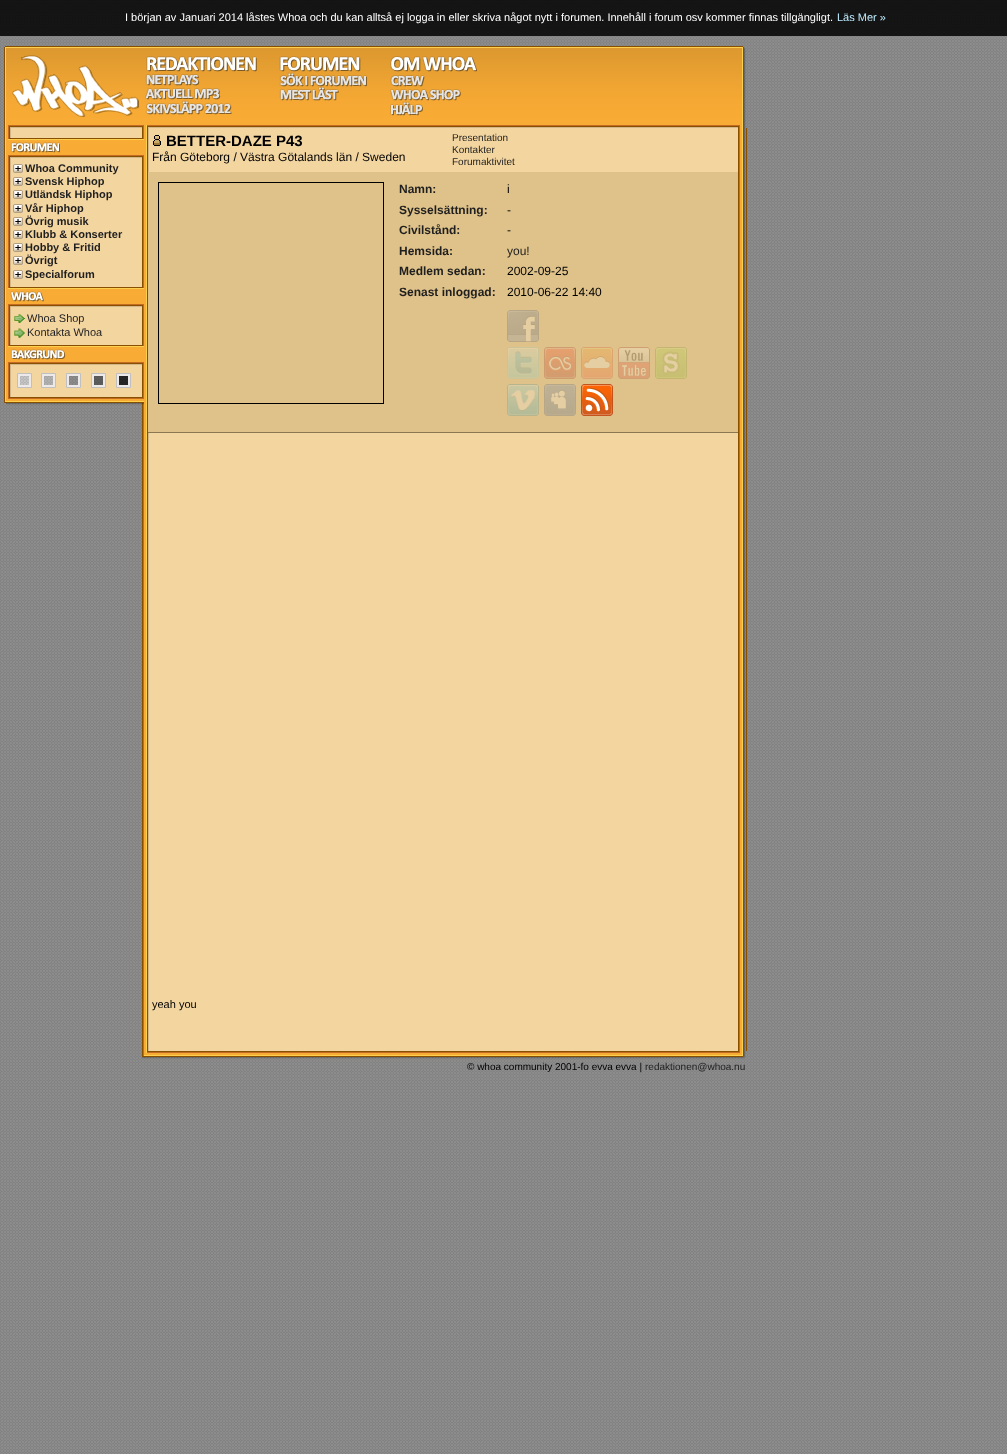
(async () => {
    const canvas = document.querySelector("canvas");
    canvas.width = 1007;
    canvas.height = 1454;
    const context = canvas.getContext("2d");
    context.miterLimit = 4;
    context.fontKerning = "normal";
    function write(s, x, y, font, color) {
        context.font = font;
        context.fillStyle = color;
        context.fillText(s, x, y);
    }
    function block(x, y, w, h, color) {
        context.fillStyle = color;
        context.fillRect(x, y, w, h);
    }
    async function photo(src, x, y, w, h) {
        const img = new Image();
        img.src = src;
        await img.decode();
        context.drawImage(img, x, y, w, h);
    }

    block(0, 0, 1007, 1454, "rgb(255, 255, 255)");
    await photo("media/1.png", 0, 0, 1007, 1454);
    block(0, 0, 1007, 36, "rgba(0, 0, 0, 0.85)");
    write("I början av Januari 2014 låstes Whoa och du kan alltså ej logga in eller skriva något nytt i forumen. Innehåll i forum osv kommer finnas tillgängligt.", 125, 21, "11px Liberation Sans", "rgb(255, 255, 255)");
    write("Läs Mer »", 837, 21, "11px Liberation Sans", "rgb(191, 237, 255)");
    await photo("media/2.png", 4, 46, 742, 82);
    await photo("media/3.png", 12, 55, 127, 62);
    await photo("media/4.png", 146, 56, 111, 16);
    await photo("media/5.png", 145, 74, 55, 12);
    await photo("media/6.png", 145, 88, 76, 12);
    await photo("media/7.png", 145, 100, 87, 15);
    await photo("media/8.png", 279, 56, 82, 16);
    await photo("media/9.png", 279, 72, 88, 15);
    await photo("media/10.png", 279, 86, 60, 15);
    await photo("media/11.png", 390, 56, 87, 16);
    await photo("media/12.png", 390, 75, 35, 12);
    await photo("media/13.png", 390, 89, 71, 12);
    await photo("media/14.png", 390, 101, 33, 15);
    await photo("media/15.png", 4, 128, 138, 275);
    await photo("media/28.png", 142, 128, 605, 923);
    await photo("media/16.png", 8, 138, 136, 20);
    await photo("media/17.png", 13, 164, 10, 9);
    write("Whoa Community", 25, 172, "bold 11px Liberation Sans", "rgb(31, 31, 31)");
    await photo("media/17.png", 13, 177, 10, 9);
    write("Svensk Hiphop", 25, 185, "bold 11px Liberation Sans", "rgb(31, 31, 31)");
    await photo("media/17.png", 13, 190, 10, 9);
    write("Utländsk Hiphop", 25, 198, "bold 11px Liberation Sans", "rgb(31, 31, 31)");
    await photo("media/17.png", 13, 204, 10, 9);
    write("Vår Hiphop", 25, 212, "bold 11px Liberation Sans", "rgb(31, 31, 31)");
    await photo("media/17.png", 13, 217, 10, 9);
    write("Övrig musik", 25, 225, "bold 11px Liberation Sans", "rgb(31, 31, 31)");
    await photo("media/17.png", 13, 230, 10, 9);
    write("Klubb & Konserter", 25, 238, "bold 11px Liberation Sans", "rgb(31, 31, 31)");
    await photo("media/17.png", 13, 243, 10, 9);
    write("Hobby & Fritid", 25, 251, "bold 11px Liberation Sans", "rgb(31, 31, 31)");
    await photo("media/17.png", 13, 256, 10, 9);
    write("Övrigt", 25, 264, "bold 11px Liberation Sans", "rgb(31, 31, 31)");
    await photo("media/17.png", 13, 270, 10, 9);
    write("Specialforum", 25, 278, "bold 11px Liberation Sans", "rgb(31, 31, 31)");
    await photo("media/18.png", 8, 287, 136, 20);
    await photo("media/19.png", 14, 314, 11, 9);
    write("Whoa Shop", 27, 322, "11px Liberation Sans", "rgb(31, 31, 31)");
    await photo("media/20.png", 14, 328, 11, 10);
    write("Kontakta Whoa", 27, 336, "11px Liberation Sans", "rgb(31, 31, 31)");
    await photo("media/21.png", 8, 345, 136, 20);
    context.fillStyle = "rgb(238, 233, 233)";
    context.beginPath();
    context.rect(17.5, 373.5, 14, 14);
    context.fill();
    context.strokeStyle = "rgb(192, 192, 192)";
    context.stroke();
    context.beginPath();
    context.rect(41.5, 373.5, 14, 14);
    context.fill();
    context.stroke();
    context.beginPath();
    context.rect(66.5, 373.5, 14, 14);
    context.fill();
    context.stroke();
    context.beginPath();
    context.rect(91.5, 373.5, 14, 14);
    context.fill();
    context.stroke();
    context.beginPath();
    context.rect(116.5, 373.5, 14, 14);
    context.fill();
    context.stroke();
    await photo("media/22.png", 20, 376, 9, 9);
    await photo("media/23.png", 44, 376, 9, 9);
    await photo("media/24.png", 69, 376, 9, 9);
    await photo("media/25.png", 94, 376, 9, 9);
    await photo("media/26.png", 119, 376, 9, 9);
    await photo("media/27.png", 5, 397, 139, 8);
    await photo("media/29.png", 153, 135, 8, 11);
    write("BETTER-DAZE P43", 166, 146, "bold 15px Liberation Sans", "rgb(0, 0, 0)");
    write("Från Göteborg / Västra Götalands län / Sweden", 152, 161, "12px Liberation Sans", "rgb(0, 0, 0)");
    block(148, 432, 590, 1, "rgb(138, 120, 82)");
    write("Presentation", 452, 141, "10px Liberation Sans", "rgb(31, 31, 31)");
    write("Kontakter", 452, 153, "10px Liberation Sans", "rgb(31, 31, 31)");
    write("Forumaktivitet", 452, 165, "10px Liberation Sans", "rgb(31, 31, 31)");
    block(148, 172, 590, 260, "rgb(223, 194, 138)");
    context.strokeStyle = "rgb(0, 0, 0)";
    context.strokeRect(158.5, 182.5, 225, 221);
    write("Namn:", 399, 193, "bold 12px Liberation Sans", "rgb(31, 31, 31)");
    write("i", 507, 193, "12px Liberation Sans", "rgb(0, 0, 0)");
    write("Sysselsättning:", 399, 214, "bold 12px Liberation Sans", "rgb(31, 31, 31)");
    write("-", 507, 214, "12px Liberation Sans", "rgb(0, 0, 0)");
    write("Civilstånd:", 399, 234, "bold 12px Liberation Sans", "rgb(31, 31, 31)");
    write("-", 507, 234, "12px Liberation Sans", "rgb(0, 0, 0)");
    write("Hemsida:", 399, 255, "bold 12px Liberation Sans", "rgb(31, 31, 31)");
    write("you!", 507, 255, "12px Liberation Sans", "rgb(31, 31, 31)");
    write("Medlem sedan:", 399, 275, "bold 12px Liberation Sans", "rgb(31, 31, 31)");
    write("2002-09-25", 507, 275, "12px Liberation Sans", "rgb(0, 0, 0)");
    write("Senast inloggad:", 399, 296, "bold 12px Liberation Sans", "rgb(31, 31, 31)");
    write("2010-06-22 14:40", 507, 296, "12px Liberation Sans", "rgb(0, 0, 0)");
    await photo("media/30.png", 507, 310, 32, 32);
    await photo("media/31.png", 507, 347, 32, 32);
    await photo("media/32.png", 544, 347, 32, 32);
    await photo("media/33.png", 581, 347, 32, 32);
    await photo("media/34.png", 618, 347, 32, 32);
    await photo("media/35.png", 655, 347, 32, 32);
    await photo("media/36.png", 507, 384, 32, 32);
    await photo("media/37.png", 544, 384, 32, 32);
    await photo("media/38.png", 581, 384, 32, 32);
    write("yeah you", 152, 1008, "11px Liberation Sans", "rgb(0, 0, 0)");
    await photo("media/39.png", 142, 1051, 604, 8);
    write("© whoa community 2001-fo evva evva |", 467, 1070, "10px Liberation Sans", "rgb(0, 0, 0)");
    write("redaktionen@whoa.nu", 645, 1070, "10px Liberation Sans", "rgb(31, 31, 31)");
})();
